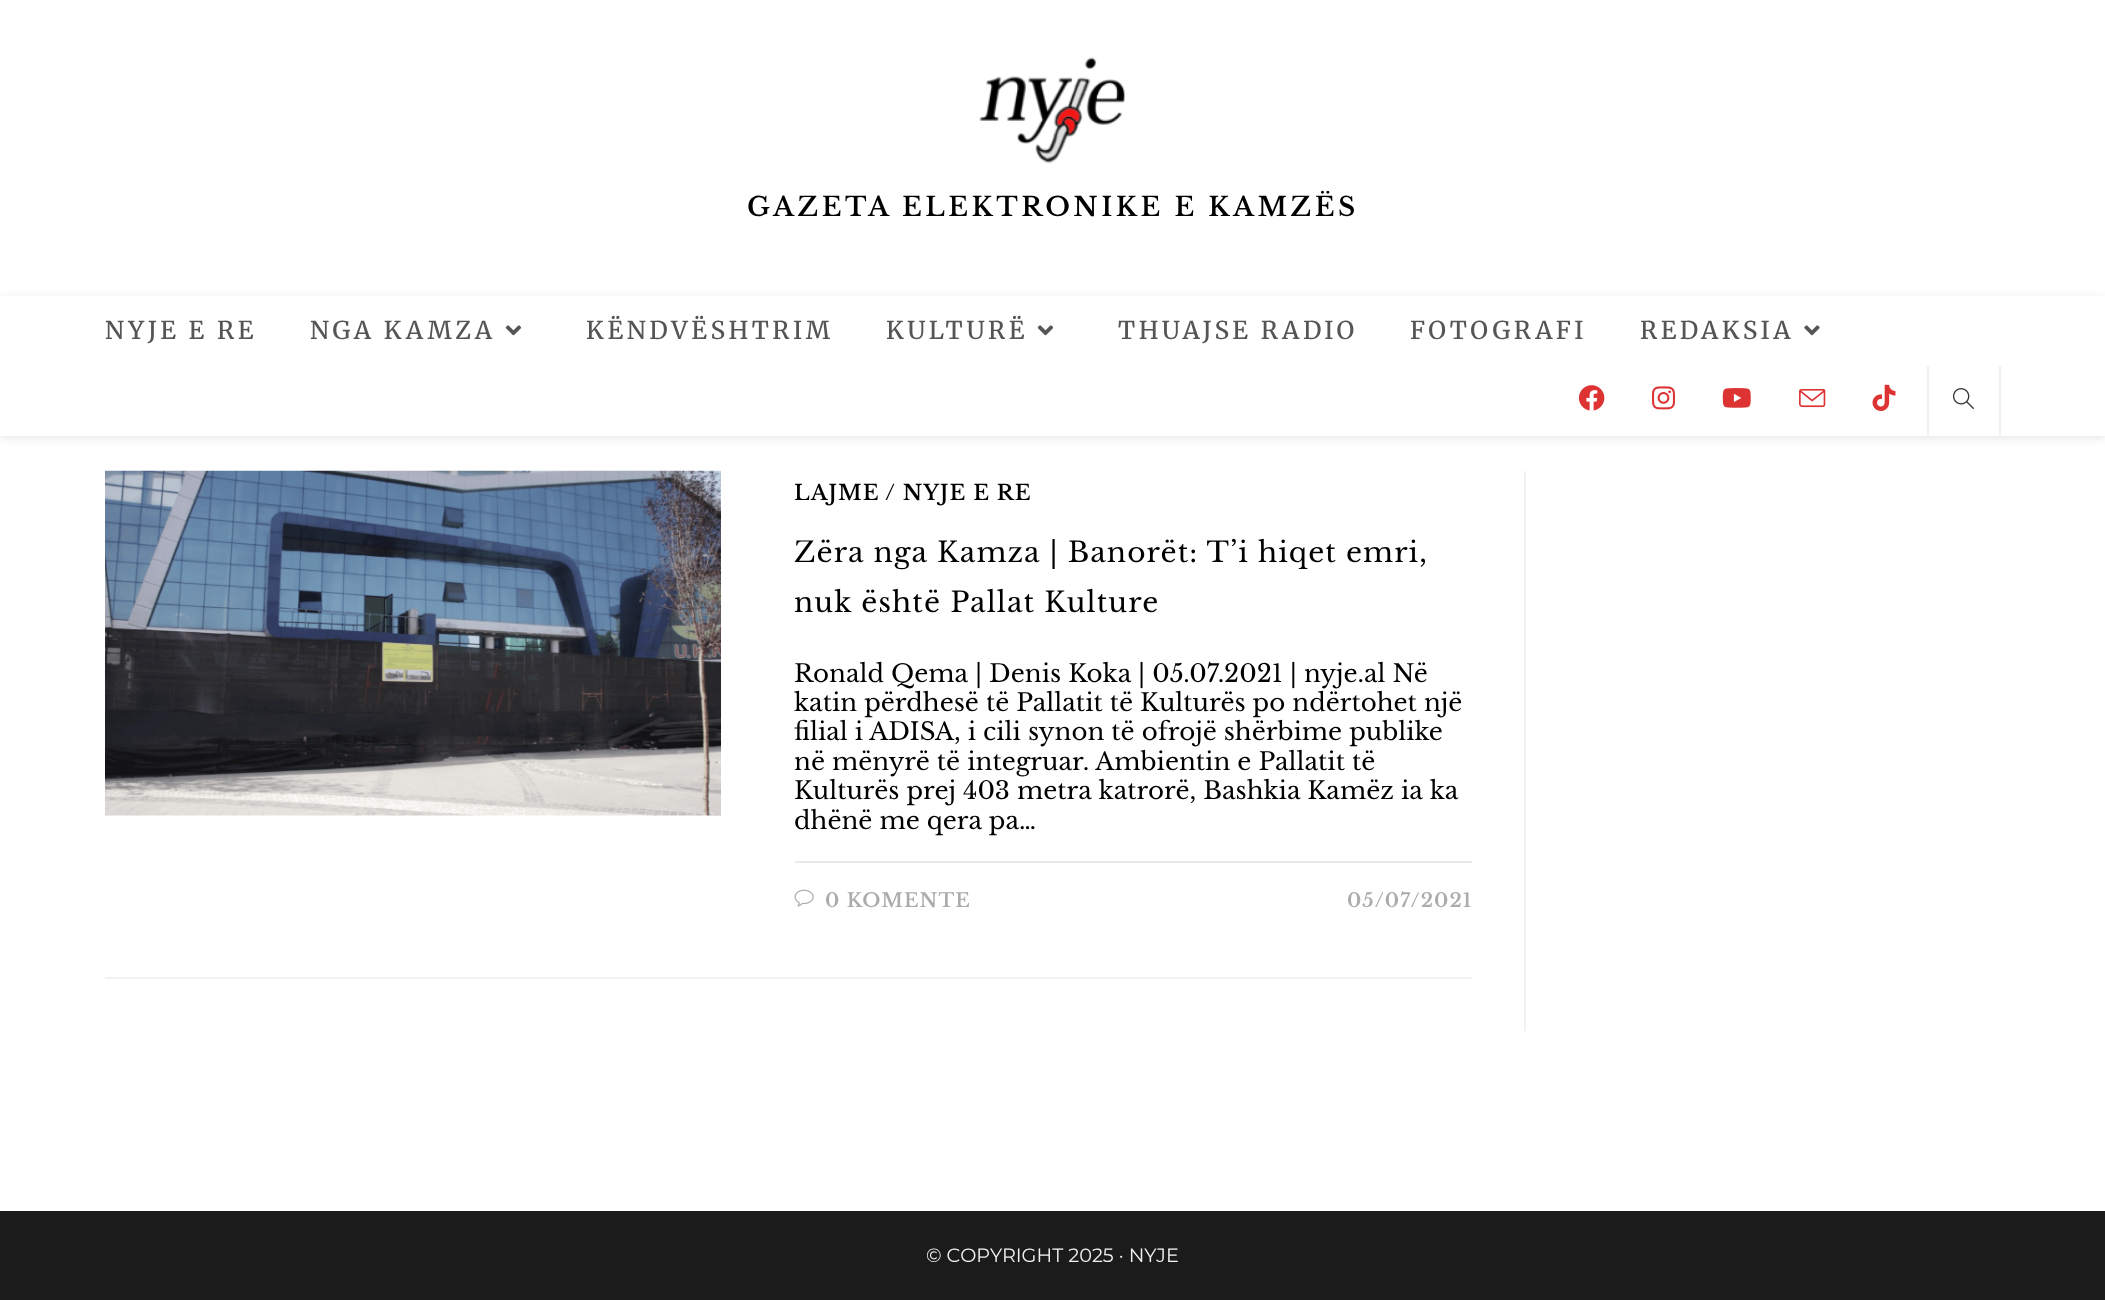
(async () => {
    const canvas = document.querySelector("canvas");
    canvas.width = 2105;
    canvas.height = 1300;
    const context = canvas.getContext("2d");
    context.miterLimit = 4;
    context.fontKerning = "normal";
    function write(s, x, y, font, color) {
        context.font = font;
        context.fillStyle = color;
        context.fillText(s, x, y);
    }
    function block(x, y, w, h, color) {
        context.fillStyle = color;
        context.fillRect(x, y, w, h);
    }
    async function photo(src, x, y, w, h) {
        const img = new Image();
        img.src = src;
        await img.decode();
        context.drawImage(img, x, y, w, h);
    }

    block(0, 0, 2105, 1300, "rgb(255, 255, 255)");
    await photo("media/1.png", 979, 57, 146, 107);
    context.letterSpacing = "3.5px";
    write("GAZETA ELEKTRONIKE E KAMZËS", 747, 216, "600 26.25px Libre Baskerville", "rgb(0, 0, 0)");
    context.fillStyle = "rgba(0, 0, 0, 0.1)";
    context.filter = "blur(4.5px)";
    context.beginPath();
    context.rect(0, 298, 2105, 140);
    context.fill();
    context.filter = "none";
    block(0, 296, 2105, 140, "rgb(255, 255, 255)");
    write("NYJE E RE", 105, 339, "300 24.5px Merriweather", "rgb(85, 85, 85)");
    write("NGA KAMZA", 310, 339, "300 24.5px Merriweather", "rgb(85, 85, 85)");
    await photo("media/2.png", 505, 325, 17, 11);
    write("KËNDVËSHTRIM", 586, 339, "300 24.5px Merriweather", "rgb(85, 85, 85)");
    write("KULTURË", 886, 339, "300 24.5px Merriweather", "rgb(85, 85, 85)");
    await photo("media/2.png", 1037, 325, 17, 11);
    write("THUAJSE RADIO", 1118, 339, "300 24.5px Merriweather", "rgb(85, 85, 85)");
    write("FOTOGRAFI", 1410, 339, "300 24.5px Merriweather", "rgb(85, 85, 85)");
    write("REDAKSIA", 1640, 339, "300 24.5px Merriweather", "rgb(85, 85, 85)");
    await photo("media/3.png", 1804, 325, 16, 11);
    await photo("media/4.png", 1578, 385, 27, 26);
    await photo("media/5.png", 1652, 386, 23, 24);
    await photo("media/6.png", 1722, 388, 29, 20);
    await photo("media/7.png", 1799, 389, 27, 19);
    await photo("media/8.png", 1872, 384, 24, 27);
    block(1999, 366, 2, 70, "rgb(241, 241, 241)");
    block(1927, 366, 2, 70, "rgb(241, 241, 241)");
    await photo("media/9.png", 1952, 388, 22, 21);
    block(1524, 471, 2, 560, "rgb(241, 241, 241)");
    block(105, 977, 1367, 2, "rgb(241, 241, 241)");
    await photo("media/10.png", 105, 470, 616, 346);
    context.letterSpacing = "1.05px";
    write("LAJME", 794, 500, "600 21px Libre Baskerville", "rgb(0, 0, 0)");
    write("/ NYJE E RE", 885, 500, "600 21px Libre Baskerville", "rgb(0, 0, 0)");
    write("Zëra nga Kamza | Banorët: T’i hiqet emri,", 794, 562, "28px Libre Baskerville", "rgb(0, 0, 0)");
    write("nuk është Pallat Kulture", 794, 612, "28px Libre Baskerville", "rgb(0, 0, 0)");
    context.letterSpacing = "0px";
    write("Ronald Qema | Denis Koka | 05.07.2021 | nyje.al Në", 794, 682, "24.5px Libre Baskerville", "rgb(0, 0, 0)");
    write("katin përdhesë të Pallatit të Kulturës po ndërtohet një", 794, 711, "24.5px Libre Baskerville", "rgb(0, 0, 0)");
    write("filial i ADISA, i cili synon të ofrojë shërbime publike", 794, 740, "24.5px Libre Baskerville", "rgb(0, 0, 0)");
    write("në mënyrë të integruar. Ambientin e Pallatit të", 794, 770, "24.5px Libre Baskerville", "rgb(0, 0, 0)");
    write("Kulturës prej 403 metra katrorë, Bashkia Kamëz ia ka", 794, 799, "24.5px Libre Baskerville", "rgb(0, 0, 0)");
    write("dhënë me qera pa…", 794, 829, "24.5px Libre Baskerville", "rgb(0, 0, 0)");
    block(795, 861, 677, 2, "rgb(233, 233, 233)");
    await photo("media/11.png", 794, 889, 20, 18);
    context.letterSpacing = "1.05px";
    write("0 KOMENTE", 825, 907, "600 19.25px Libre Baskerville", "rgb(171, 171, 171)");
    write("05/07/2021", 1347, 907, "600 19.25px Libre Baskerville", "rgb(171, 171, 171)");
    block(0, 1211, 2105, 89, "rgb(27, 27, 27)");
    context.letterSpacing = "0px";
    write("© COPYRIGHT 2025 · NYJE", 926, 1262, "100 19.25px Montserrat", "rgb(242, 242, 242)");
})();
